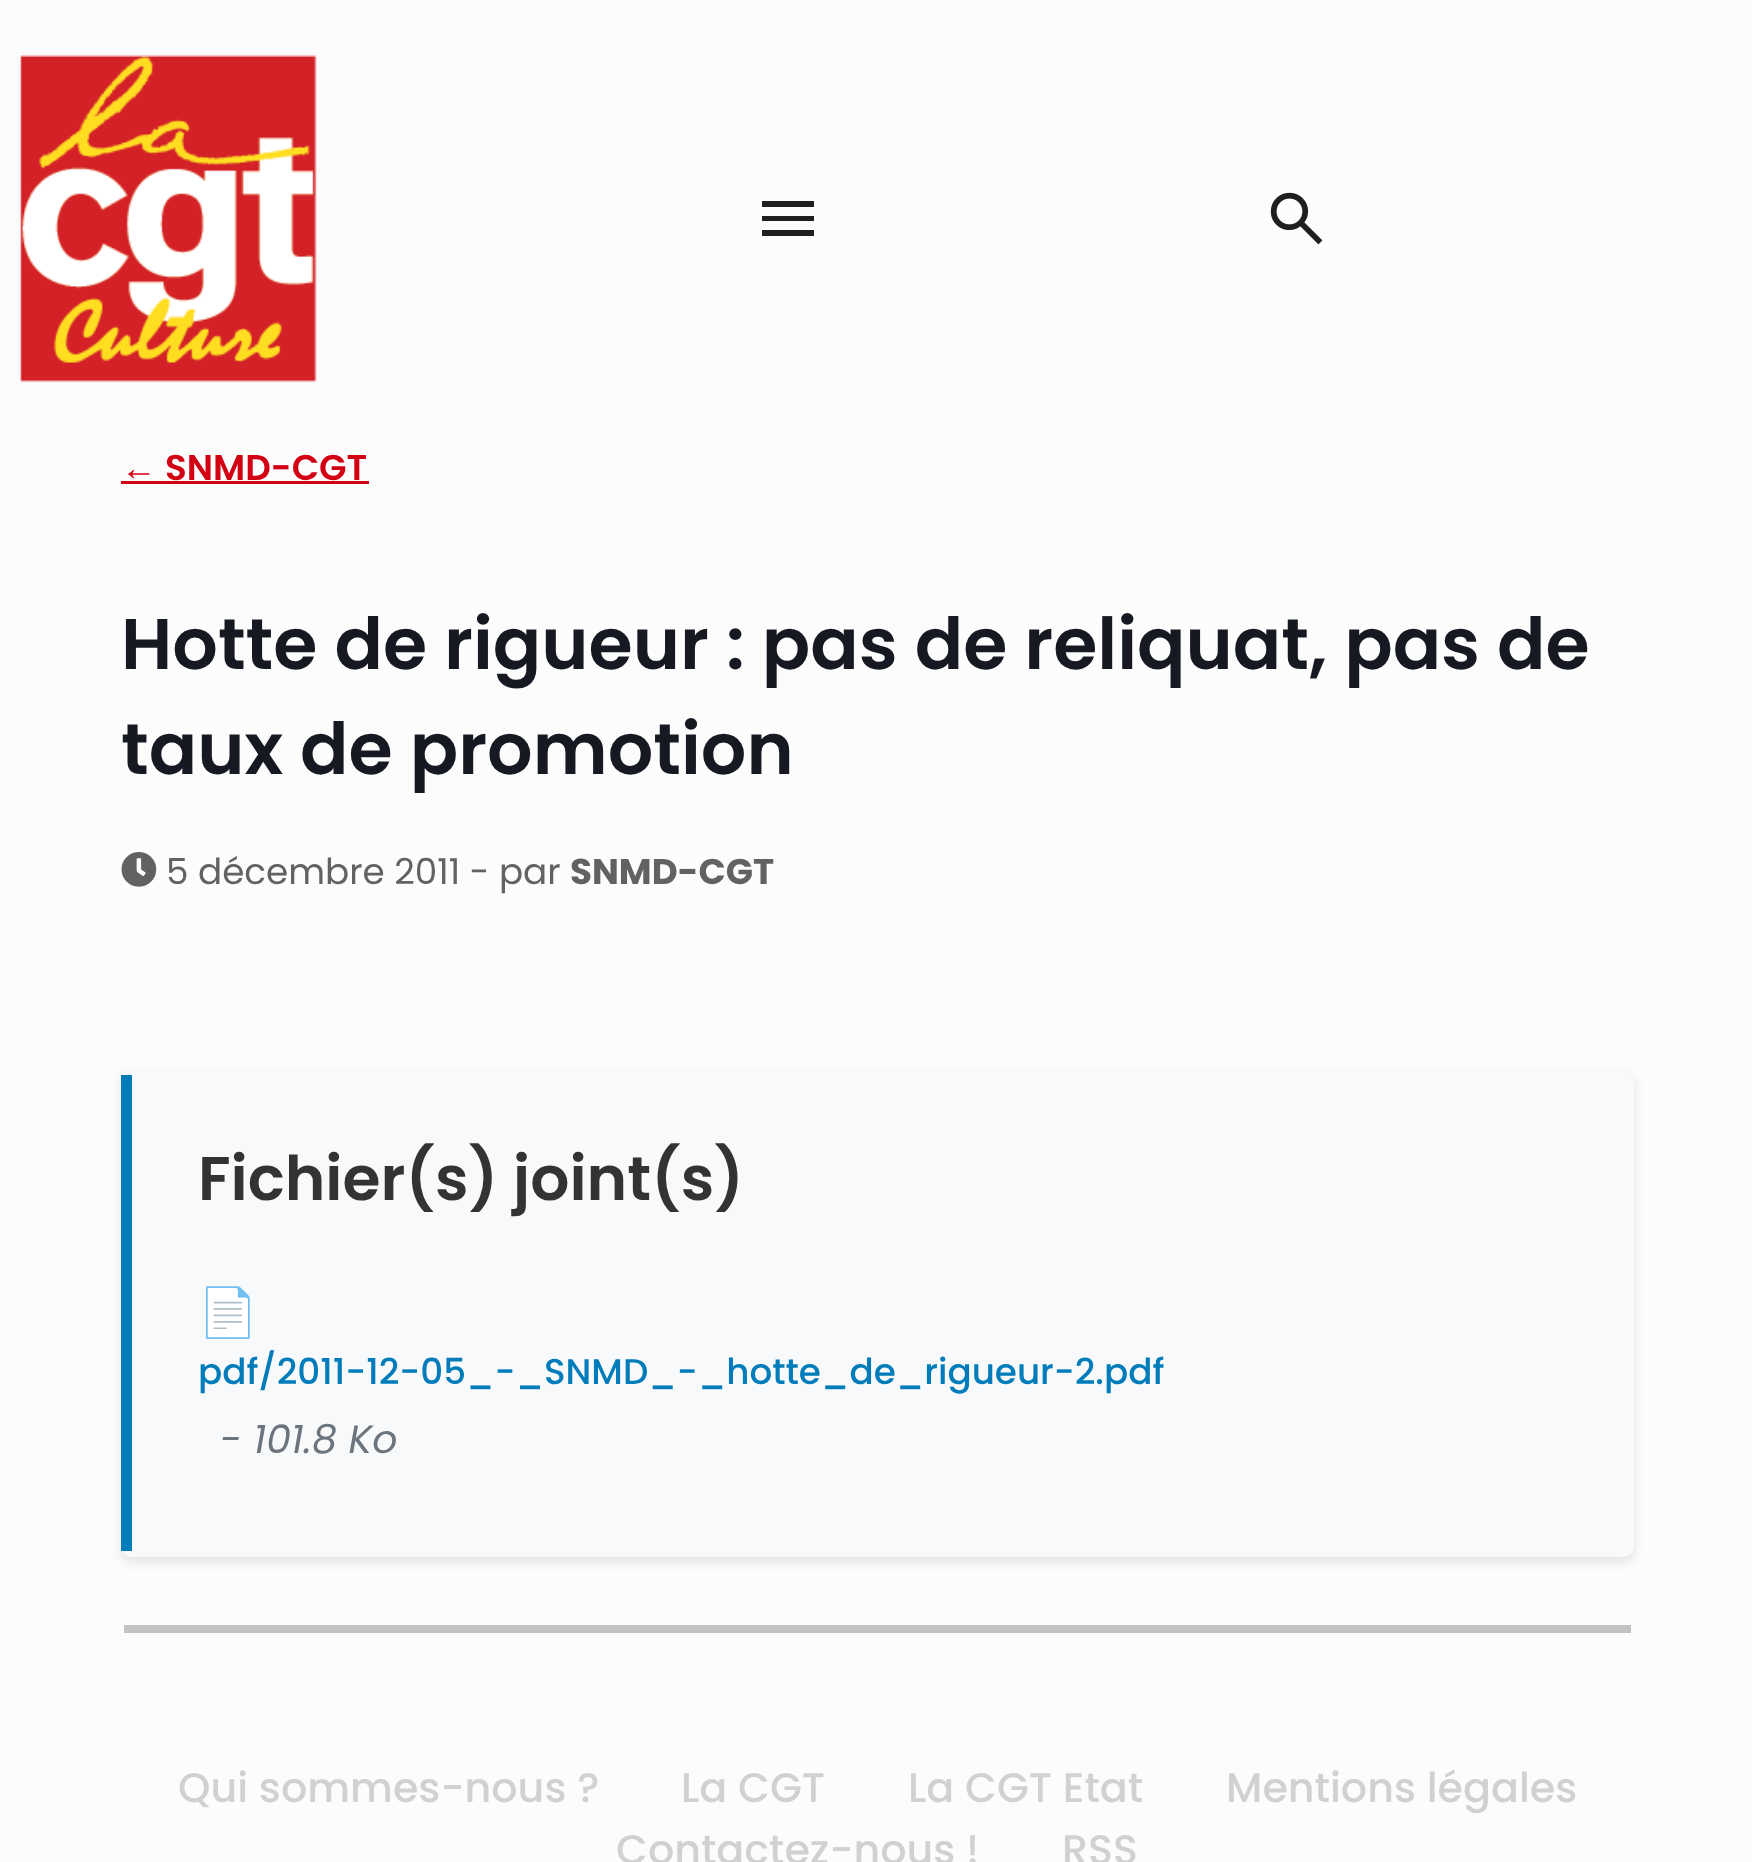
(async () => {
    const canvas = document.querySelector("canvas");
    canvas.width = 1752;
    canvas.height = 1862;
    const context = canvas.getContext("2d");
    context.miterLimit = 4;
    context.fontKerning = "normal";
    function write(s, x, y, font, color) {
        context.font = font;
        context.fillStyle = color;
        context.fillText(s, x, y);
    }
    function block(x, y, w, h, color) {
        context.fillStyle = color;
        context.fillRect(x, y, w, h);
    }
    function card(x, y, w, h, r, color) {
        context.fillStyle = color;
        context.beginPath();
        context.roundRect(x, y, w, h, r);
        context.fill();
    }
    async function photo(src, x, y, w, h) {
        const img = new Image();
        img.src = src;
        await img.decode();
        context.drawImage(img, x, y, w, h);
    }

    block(0, 0, 1752, 1862, "rgb(252, 252, 252)");
    await photo("media/1.png", 20, 55, 297, 328);
    context.fillStyle = "rgb(31, 31, 31)";
    context.beginPath();
    context.moveTo(762, 236);
    context.lineTo(762, 230);
    context.lineTo(814, 230);
    context.lineTo(814, 236);
    context.closePath();
    context.moveTo(762, 221);
    context.lineTo(762, 216);
    context.lineTo(814, 216);
    context.lineTo(814, 221);
    context.closePath();
    context.moveTo(762, 207);
    context.lineTo(762, 201);
    context.lineTo(814, 201);
    context.lineTo(814, 207);
    context.closePath();
    context.fill();
    await photo("media/2.png", 1270, 192, 53, 53);
    write("←", 121, 480, "bold 35.75px Liberation Serif", "rgb(211, 0, 19)");
    block(121, 481, 248, 3, "rgb(211, 0, 19)");
    write("SNMD-CGT", 165, 480, "600 35.75px Poppins", "rgb(211, 0, 19)");
    write("Hotte de rigueur : pas de reliquat, pas de", 121, 669, "600 71.5px Poppins", "rgb(22, 25, 34)");
    write("taux de promotion", 121, 774, "600 71.5px Poppins", "rgb(22, 25, 34)");
    await photo("media/3.png", 121, 852, 36, 35);
    write("5 décembre 2011 - par", 166, 884, "35.75px Poppins", "rgb(98, 98, 98)");
    write("SNMD-CGT", 570, 884, "bold 35.75px Poppins", "rgb(98, 98, 98)");
    context.fillStyle = "rgba(0, 0, 0, 0.1)";
    context.filter = "blur(5.5px)";
    context.beginPath();
    context.roundRect(121, 1075, 1513, 487, 11);
    context.fill();
    context.filter = "none";
    card(121, 1070, 1513, 487, 11, "rgb(248, 249, 250)");
    block(121, 1075, 11, 476, "rgb(0, 124, 186)");
    write("Fichier(s) joint(s)", 198, 1200, "600 61.5px Poppins", "rgb(51, 51, 51)");
    write("📄", 198, 1329, "48px Noto Color Emoji", "rgb(98, 98, 98)");
    write("pdf/2011-12-05_-_SNMD_-_hotte_de_rigueur-2.pdf", 198, 1384, "500 35.75px Poppins", "rgb(0, 124, 186)");
    write("- 101.8 Ko", 220, 1453, "italic 39.5px Poppins", "rgb(108, 117, 125)");
    block(124, 1625, 1507, 8, "rgb(195, 195, 198)");
    write("Qui sommes-nous ?", 178, 1802, "500 41.25px Poppins", "rgb(209, 209, 209)");
    write("La CGT", 681, 1802, "500 41.25px Poppins", "rgb(209, 209, 209)");
    write("La CGT Etat", 908, 1802, "500 41.25px Poppins", "rgb(209, 209, 209)");
    write("Mentions légales", 1226, 1802, "500 41.25px Poppins", "rgb(209, 209, 209)");
    write("Contactez-nous !", 616, 1864, "500 41.25px Poppins", "rgb(209, 209, 209)");
    write("RSS", 1062, 1864, "500 41.25px Poppins", "rgb(209, 209, 209)");
})();
